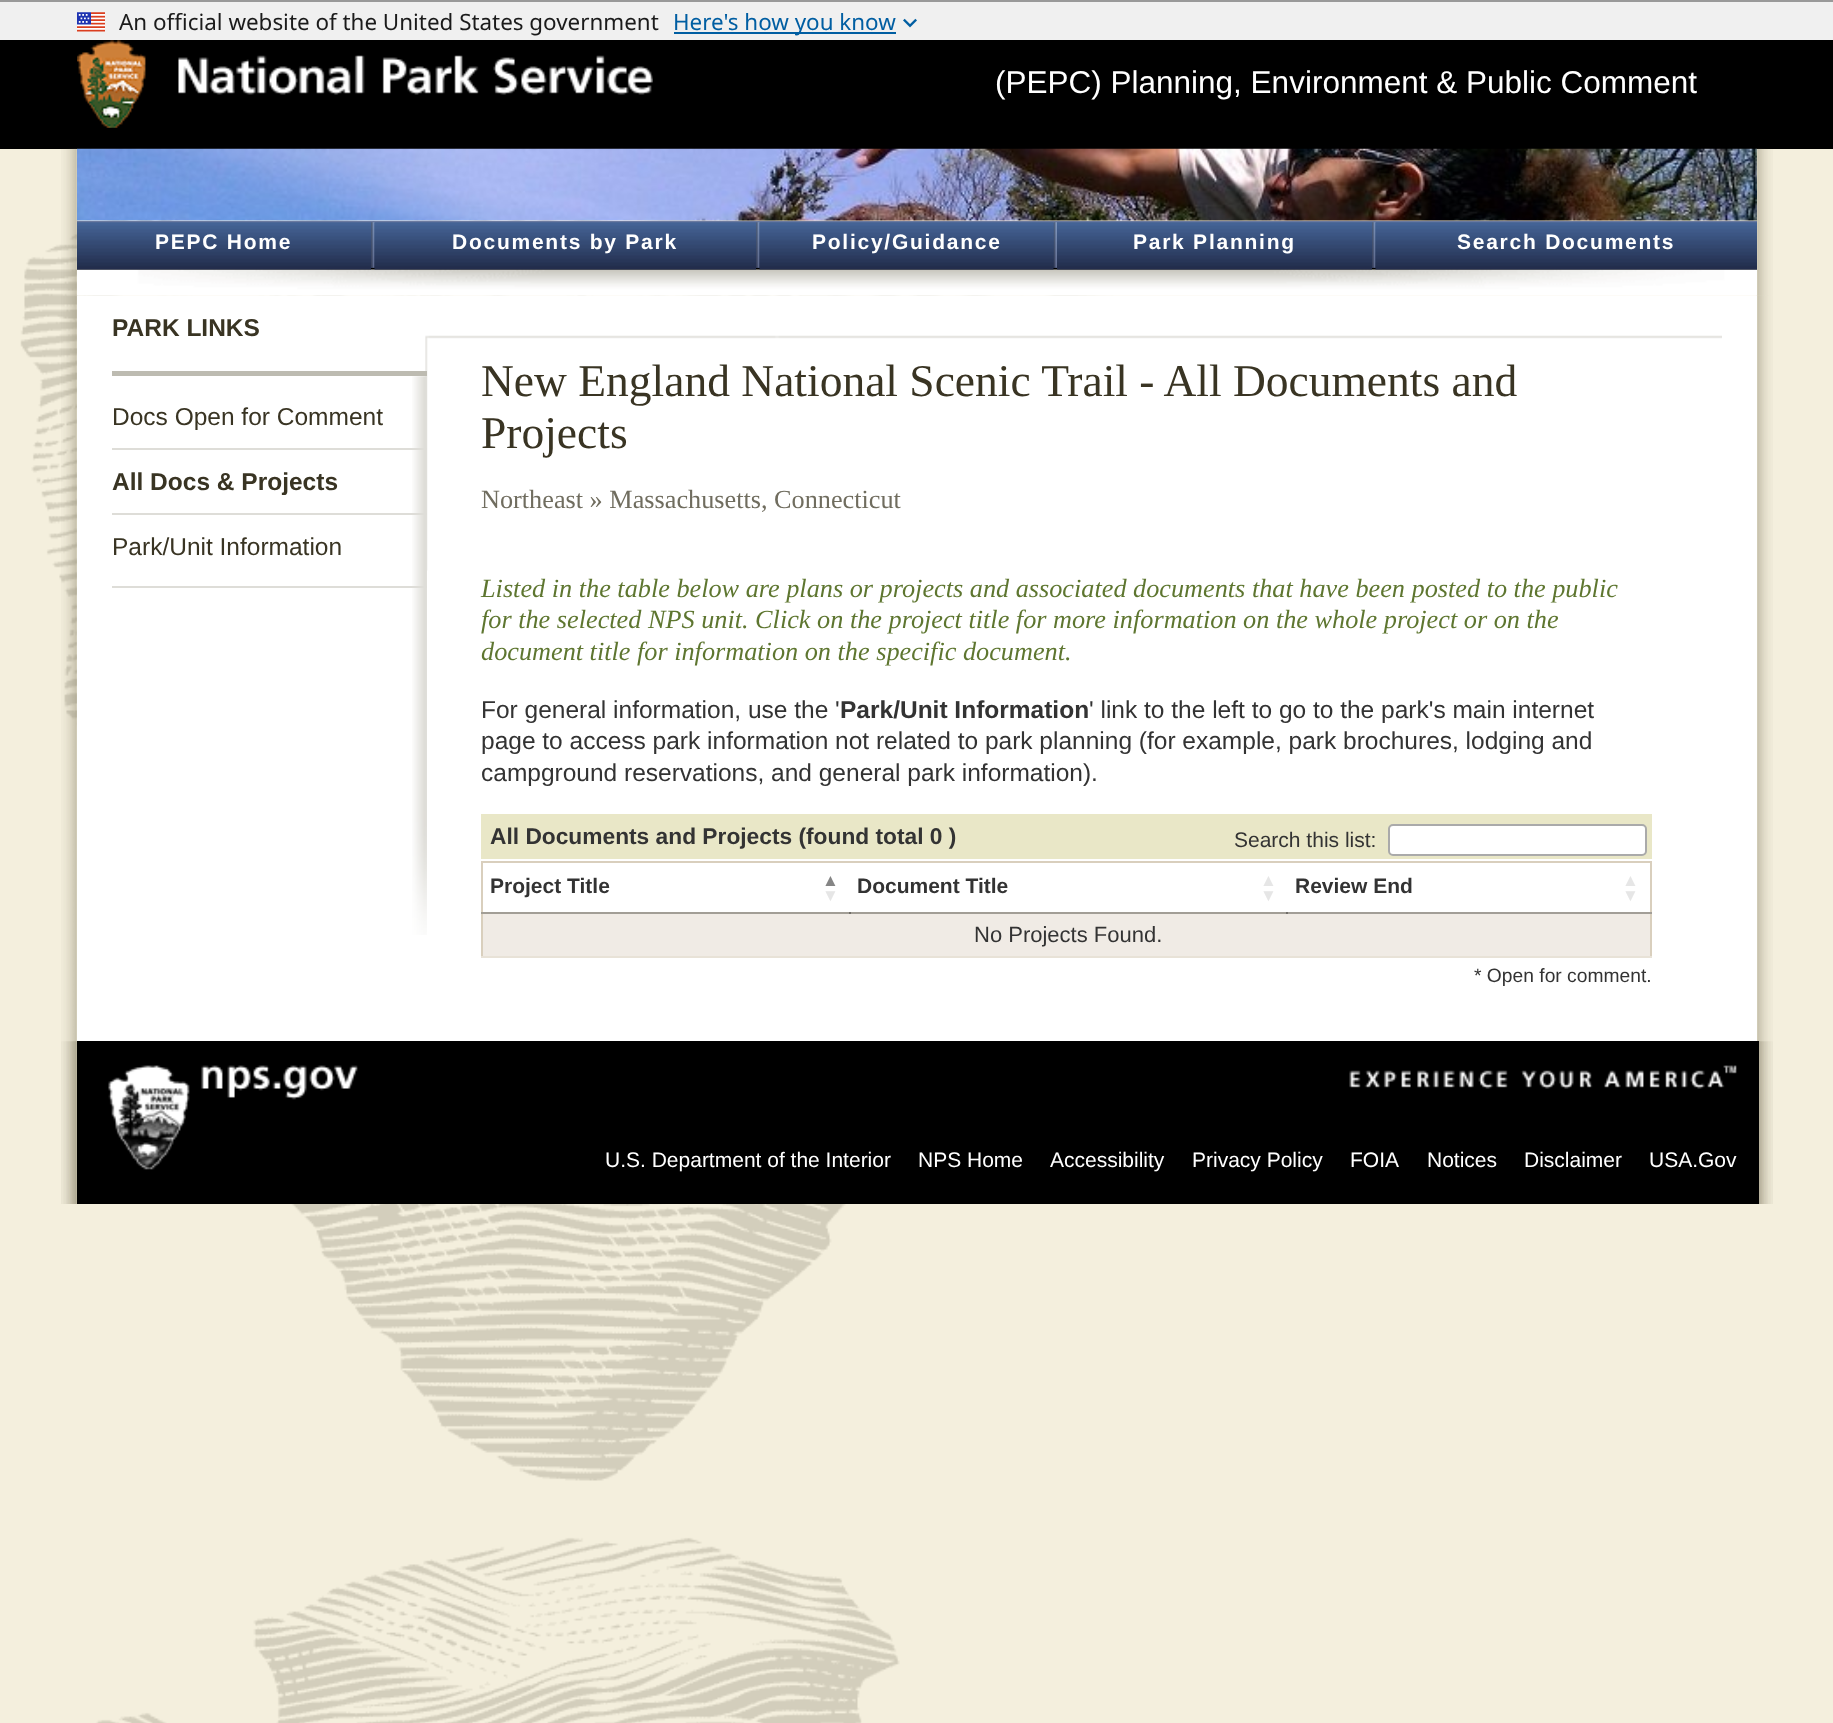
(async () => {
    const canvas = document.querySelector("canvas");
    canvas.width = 1833;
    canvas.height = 1723;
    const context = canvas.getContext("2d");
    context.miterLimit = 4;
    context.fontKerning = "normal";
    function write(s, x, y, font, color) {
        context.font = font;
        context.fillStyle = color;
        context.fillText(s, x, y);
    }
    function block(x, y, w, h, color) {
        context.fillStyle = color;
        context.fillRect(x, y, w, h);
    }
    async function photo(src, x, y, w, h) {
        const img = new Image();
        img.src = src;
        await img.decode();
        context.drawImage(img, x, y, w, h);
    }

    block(0, 0, 1833, 1723, "rgb(244, 239, 221)");
    await photo("media/1.png", 20, 149, 1109, 1574);
    block(0, 0, 1833, 2, "rgb(153, 153, 153)");
    block(0, 2, 1833, 38, "rgb(240, 240, 240)");
    await photo("media/2.png", 77, 12, 28, 20);
    write("An official website of the United States government", 119, 30, "22.4px Noto Sans", "rgb(27, 27, 27)");
    block(674, 32, 222, 2, "rgb(0, 94, 162)");
    write("Here's how you know", 673, 30, "22.4px Noto Sans", "rgb(0, 94, 162)");
    await photo("media/3.png", 903, 18, 14, 10);
    block(0, 40, 1833, 109, "rgb(0, 0, 0)");
    await photo("media/4.png", 77, 40, 576, 88);
    write("(PEPC) Planning, Environment & Public Comment", 995, 93, "31.5px Liberation Sans", "rgb(255, 255, 255)");
    await photo("media/5.png", 61, 148, 1712, 148);
    await photo("media/6.png", 77, 148, 1680, 73);
    await photo("media/7.png", 371, 223, 1005, 45);
    block(77, 221, 1680, 2, "rgb(107, 122, 159)");
    block(77, 268, 1680, 2, "rgb(0, 0, 0)");
    await photo("media/15.png", 77, 269, 1680, 27);
    await photo("media/8.png", 77, 222, 294, 48);
    context.letterSpacing = "1.75px";
    write("PEPC Home", 155, 249, "bold 21px Liberation Sans", "rgb(255, 255, 255)");
    await photo("media/9.png", 371, 222, 4, 46);
    await photo("media/10.png", 374, 222, 382, 48);
    write("Documents by Park", 452, 249, "bold 21px Liberation Sans", "rgb(255, 255, 255)");
    await photo("media/9.png", 756, 222, 4, 46);
    await photo("media/12.png", 1053, 222, 4, 46);
    await photo("media/11.png", 759, 222, 295, 48);
    write("Policy/Guidance", 812, 249, "bold 21px Liberation Sans", "rgb(255, 255, 255)");
    await photo("media/13.png", 1057, 222, 315, 48);
    write("Park Planning", 1133, 249, "bold 21px Liberation Sans", "rgb(255, 255, 255)");
    await photo("media/9.png", 1372, 222, 4, 46);
    await photo("media/14.png", 1375, 222, 382, 48);
    write("Search Documents", 1457, 249, "bold 21px Liberation Sans", "rgb(255, 255, 255)");
    await photo("media/16.png", 61, 295, 1712, 909);
    block(77, 296, 1680, 745, "rgb(255, 255, 255)");
    await photo("media/17.png", 425, 335, 1297, 236);
    block(112, 371, 315, 5, "rgb(189, 187, 177)");
    context.letterSpacing = "0px";
    write("PARK LINKS", 112, 336, "bold 24.5px Liberation Sans", "rgb(57, 52, 35)");
    await photo("media/18.png", 412, 376, 15, 559);
    block(112, 586, 315, 2, "rgb(222, 221, 216)");
    block(112, 448, 315, 2, "rgb(222, 221, 216)");
    write("Docs Open for Comment", 112, 425, "24.5px Liberation Sans", "rgb(57, 52, 35)");
    block(112, 513, 315, 2, "rgb(222, 221, 216)");
    write("All Docs & Projects", 112, 490, "bold 24.5px Liberation Sans", "rgb(57, 52, 35)");
    write("Park/Unit Information", 112, 555, "24.5px Liberation Sans", "rgb(57, 52, 35)");
    write("New England National Scenic Trail - All Documents and", 481, 396, "45.5px Liberation Serif", "rgb(57, 52, 35)");
    write("Projects", 481, 448, "45.5px Liberation Serif", "rgb(57, 52, 35)");
    write("Northeast » Massachusetts, Connecticut", 481, 508, "26.25px Liberation Serif", "rgb(112, 109, 95)");
    write("Listed in the table below are plans or projects and associated documents that have been posted to the public", 481, 597, "italic 26.25px Liberation Serif", "rgb(94, 118, 48)");
    write("for the selected NPS unit. Click on the project title for more information on the whole project or on the", 481, 628, "italic 26.25px Liberation Serif", "rgb(94, 118, 48)");
    write("document title for information on the specific document.", 481, 660, "italic 26.25px Liberation Serif", "rgb(94, 118, 48)");
    write("For general information, use the '", 481, 718, "24.5px Liberation Sans", "rgb(51, 51, 51)");
    write("Park/Unit Information", 840, 718, "bold 24.5px Liberation Sans", "rgb(51, 51, 51)");
    write("' link to the left to go to the park's main internet", 1089, 718, "24.5px Liberation Sans", "rgb(51, 51, 51)");
    write("page to access park information not related to park planning (for example, park brochures, lodging and", 481, 749, "24.5px Liberation Sans", "rgb(51, 51, 51)");
    write("campground reservations, and general park information).", 481, 781, "24.5px Liberation Sans", "rgb(51, 51, 51)");
    block(481, 814, 1171, 45, "rgb(233, 231, 199)");
    write("All Documents and Projects (found total 0 )", 490, 844, "bold 22.75px Liberation Sans", "rgb(51, 51, 51)");
    write("Search this list:", 1234, 847, "21px Liberation Sans", "rgb(51, 51, 51)");
    context.fillStyle = "rgb(255, 255, 255)";
    context.beginPath();
    context.roundRect(1389, 825, 257, 30, 4);
    context.fill();
    context.strokeStyle = "rgb(170, 170, 170)";
    context.lineWidth = 2;
    context.stroke();
    block(481, 861, 1171, 2, "rgb(217, 207, 189)");
    block(1650, 861, 2, 96, "rgb(217, 207, 189)");
    block(481, 861, 2, 96, "rgb(217, 207, 189)");
    block(481, 912, 805, 2, "rgb(232, 226, 215)");
    block(1286, 912, 366, 2, "rgb(162, 158, 151)");
    block(849, 912, 439, 2, "rgba(0, 0, 0, 0.3)");
    block(481, 912, 370, 2, "rgba(0, 0, 0, 0.3)");
    write("Project Title", 490, 893, "bold 21px Liberation Sans", "rgb(51, 51, 51)");
    write("▲", 822, 886, "bold 17px Liberation Sans", "rgb(133, 133, 133)");
    write("▼", 822, 901, "bold 17px Liberation Sans", "rgb(230, 230, 230)");
    write("Document Title", 857, 893, "bold 21px Liberation Sans", "rgb(51, 51, 51)");
    write("▲", 1260, 886, "bold 17px Liberation Sans", "rgb(230, 230, 230)");
    write("▼", 1260, 901, "bold 17px Liberation Sans", "rgb(230, 230, 230)");
    write("Review End", 1295, 893, "bold 21px Liberation Sans", "rgb(51, 51, 51)");
    write("▲", 1622, 886, "bold 17px Liberation Sans", "rgb(230, 230, 230)");
    write("▼", 1622, 901, "bold 17px Liberation Sans", "rgb(230, 230, 230)");
    block(481, 956, 1171, 2, "rgb(232, 226, 215)");
    block(483, 914, 1167, 42, "rgb(240, 235, 229)");
    write("No Projects Found.", 974, 942, "22px Liberation Sans", "rgb(51, 51, 51)");
    write("* Open for comment.", 1474, 982, "19.25px Liberation Sans", "rgb(51, 51, 51)");
    await photo("media/19.png", 61, 1041, 1712, 163);
    block(77, 1041, 1682, 163, "rgb(0, 0, 0)");
    await photo("media/20.png", 108, 1065, 82, 105);
    await photo("media/21.png", 201, 1065, 157, 35);
    await photo("media/22.png", 1349, 1065, 388, 24);
    write("U.S. Department of the Interior", 605, 1167, "21px Liberation Sans", "rgb(255, 255, 255)");
    write("NPS Home", 918, 1167, "21px Liberation Sans", "rgb(255, 255, 255)");
    write("Accessibility", 1050, 1167, "21px Liberation Sans", "rgb(255, 255, 255)");
    write("Privacy Policy", 1192, 1167, "21px Liberation Sans", "rgb(255, 255, 255)");
    write("FOIA", 1350, 1167, "21px Liberation Sans", "rgb(255, 255, 255)");
    write("Notices", 1427, 1167, "21px Liberation Sans", "rgb(255, 255, 255)");
    write("Disclaimer", 1524, 1167, "21px Liberation Sans", "rgb(255, 255, 255)");
    write("USA.Gov", 1649, 1167, "21px Liberation Sans", "rgb(255, 255, 255)");
})();
